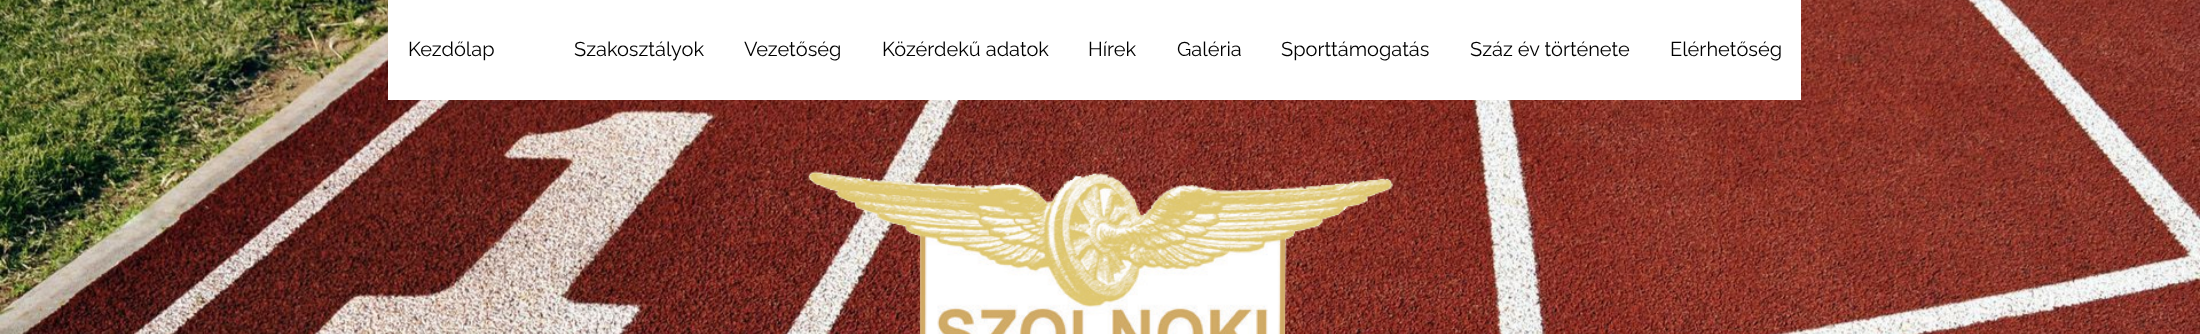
(async () => {
    const canvas = document.querySelector("canvas");
    canvas.width = 2200;
    canvas.height = 334;
    const context = canvas.getContext("2d");
    context.miterLimit = 4;
    context.fontKerning = "normal";
    function write(s, x, y, font, color) {
        context.font = font;
        context.fillStyle = color;
        context.fillText(s, x, y);
    }
    function block(x, y, w, h, color) {
        context.fillStyle = color;
        context.fillRect(x, y, w, h);
    }
    async function photo(src, x, y, w, h) {
        const img = new Image();
        img.src = src;
        await img.decode();
        context.drawImage(img, x, y, w, h);
    }

    block(0, 0, 2200, 334, "rgb(255, 255, 255)");
    await photo("media/1.png", 0, 0, 2200, 334);
    block(388, 0, 1413, 100, "rgb(255, 255, 255)");
    write("Kezdőlap", 408, 56, "20px Raleway", "rgb(0, 0, 0)");
    write("Szakosztályok", 574, 56, "20px Raleway", "rgb(0, 0, 0)");
    write("Vezetőség", 744, 56, "20px Raleway", "rgb(0, 0, 0)");
    write("Közérdekű adatok", 882, 56, "20px Raleway", "rgb(0, 0, 0)");
    write("Hírek", 1088, 56, "20px Raleway", "rgb(0, 0, 0)");
    write("Galéria", 1177, 56, "20px Raleway", "rgb(0, 0, 0)");
    write("Sporttámogatás", 1281, 56, "20px Raleway", "rgb(0, 0, 0)");
    write("Száz év története", 1470, 56, "20px Raleway", "rgb(0, 0, 0)");
    write("Elérhetőség", 1670, 56, "20px Raleway", "rgb(0, 0, 0)");
    await photo("media/2.png", 807, 165, 591, 169);
})();
